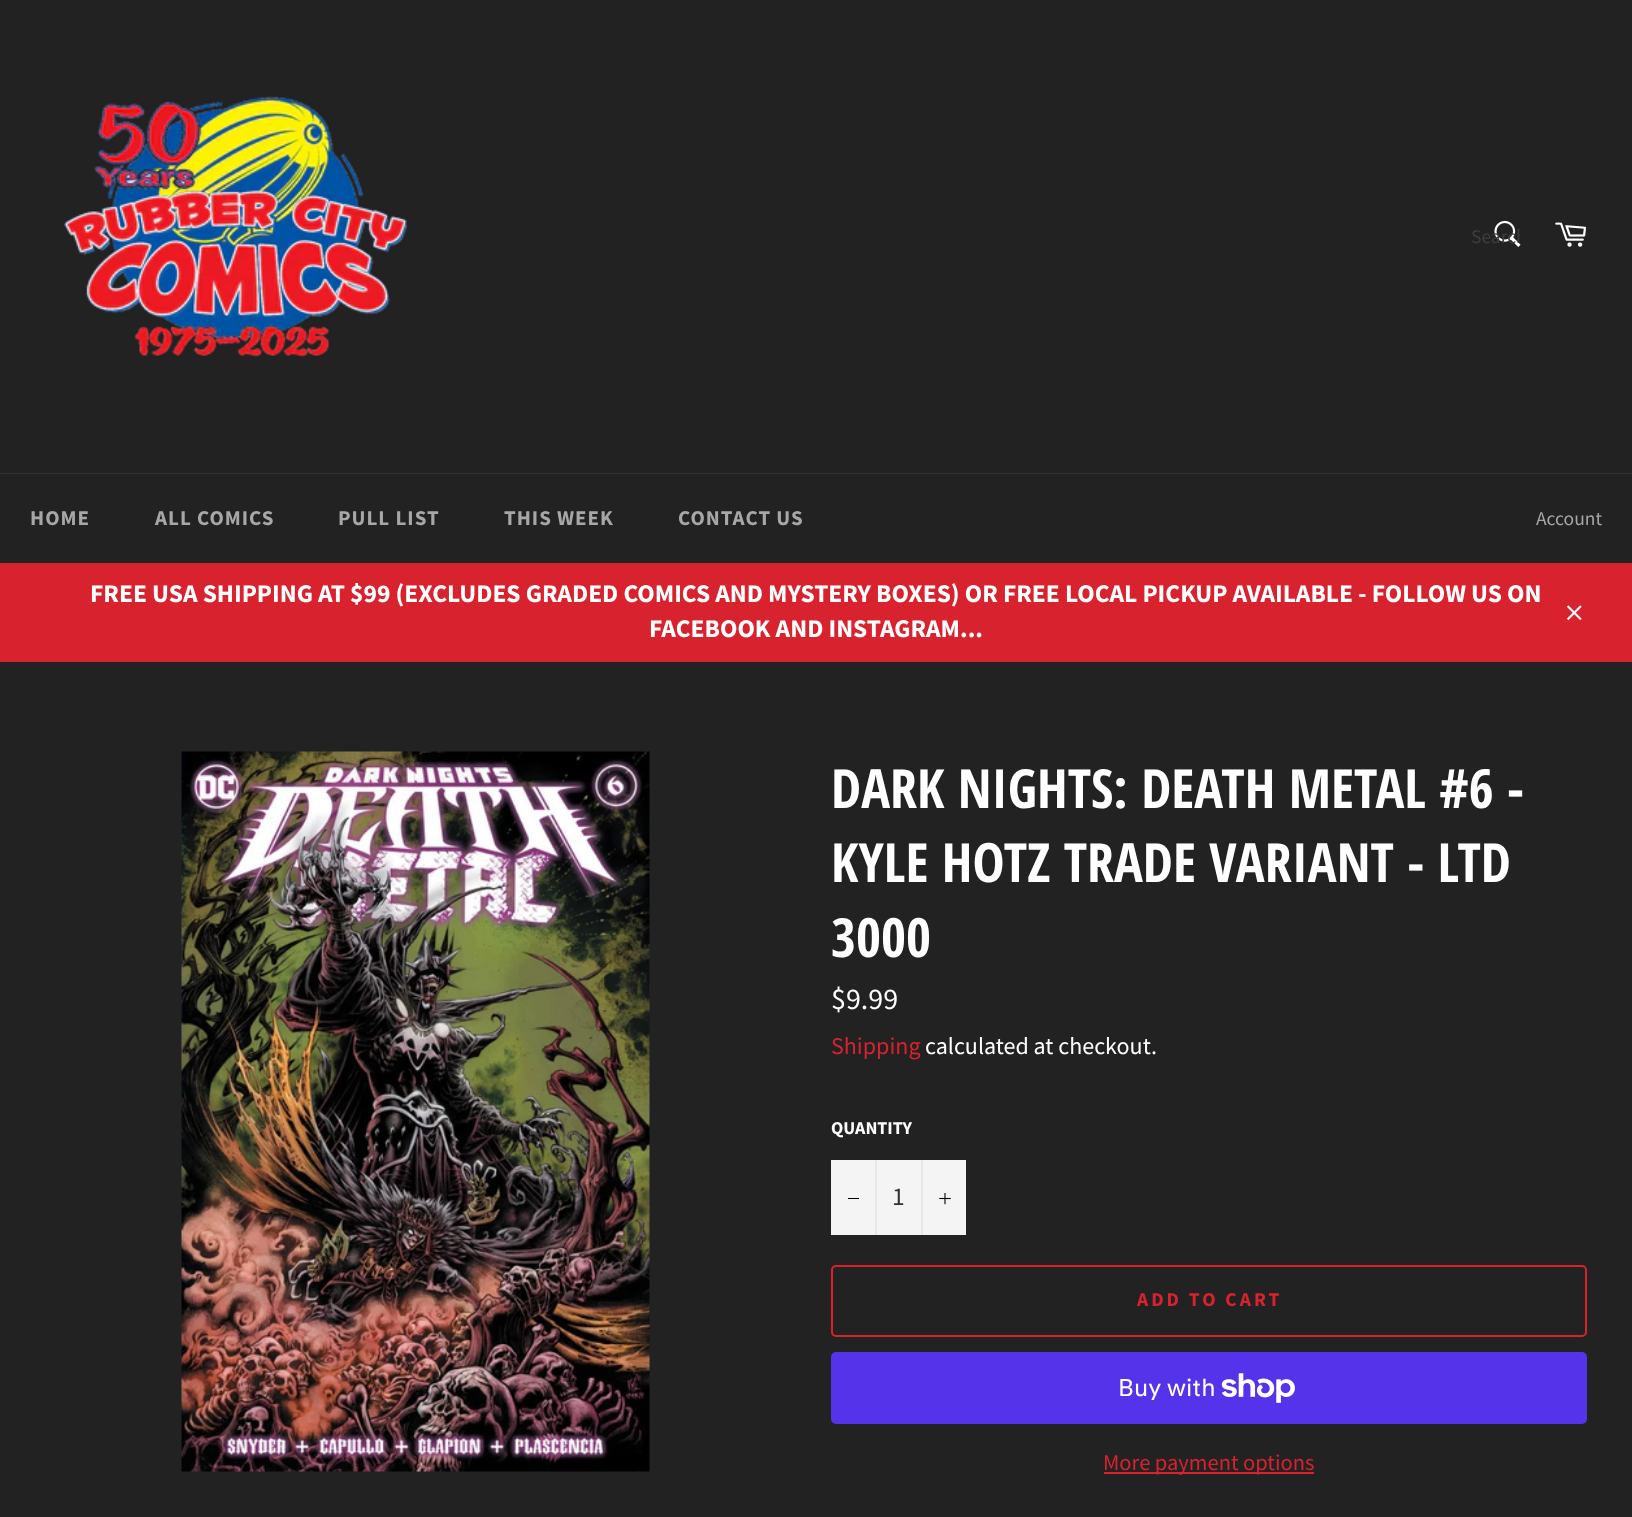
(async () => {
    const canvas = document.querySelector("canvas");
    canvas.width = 1632;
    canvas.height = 1517;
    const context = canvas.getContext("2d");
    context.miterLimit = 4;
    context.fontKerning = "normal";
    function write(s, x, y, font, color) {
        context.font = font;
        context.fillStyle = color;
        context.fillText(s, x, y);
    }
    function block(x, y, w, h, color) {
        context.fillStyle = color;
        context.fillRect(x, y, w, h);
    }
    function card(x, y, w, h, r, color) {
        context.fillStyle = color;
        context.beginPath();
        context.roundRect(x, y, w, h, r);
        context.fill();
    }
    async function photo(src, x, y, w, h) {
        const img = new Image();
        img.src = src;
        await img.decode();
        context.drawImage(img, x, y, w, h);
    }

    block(0, 0, 1632, 1517, "rgb(34, 34, 34)");
    await photo("media/1.png", 64, 96, 344, 262);
    await photo("media/2.png", 1494, 220, 27, 27);
    context.save();
    context.beginPath();
    context.rect(1472, 224, 48, 25);
    context.clip();
    write("Search", 1471, 243, "19.5px Source Sans Pro", "rgb(62, 62, 62)");
    context.restore();
    await photo("media/3.png", 1555, 222, 31, 25);
    block(0, 473, 1632, 1, "rgb(47, 47, 47)");
    context.letterSpacing = "1px";
    write("HOME", 30, 525, "bold 21px Source Sans Pro", "rgb(167, 167, 167)");
    write("ALL COMICS", 155, 525, "bold 21px Source Sans Pro", "rgb(167, 167, 167)");
    write("PULL LIST", 338, 525, "bold 21px Source Sans Pro", "rgb(167, 167, 167)");
    write("THIS WEEK", 504, 525, "bold 21px Source Sans Pro", "rgb(167, 167, 167)");
    write("CONTACT US", 678, 525, "bold 21px Source Sans Pro", "rgb(167, 167, 167)");
    context.letterSpacing = "0px";
    write("Account", 1536, 525, "19.5px Source Sans Pro", "rgb(167, 167, 167)");
    block(0, 563, 1632, 99, "rgb(216, 35, 47)");
    write("FREE USA SHIPPING AT $99 (EXCLUDES GRADED COMICS AND MYSTERY BOXES) OR FREE LOCAL PICKUP AVAILABLE - FOLLOW US ON", 90, 602, "bold 25.5px Source Sans Pro", "rgb(255, 255, 255)");
    write("FACEBOOK AND INSTAGRAM...", 649, 637, "bold 25.5px Source Sans Pro", "rgb(255, 255, 255)");
    await photo("media/4.png", 1566, 605, 16, 16);
    await photo("media/5.png", 181, 751, 469, 721);
    write("DARK NIGHTS: DEATH METAL #6 -", 831, 808, "bold 54px Open Sans Condensed", "rgb(255, 255, 255)");
    write("KYLE HOTZ TRADE VARIANT - LTD", 831, 882, "bold 54px Open Sans Condensed", "rgb(255, 255, 255)");
    write("3000", 831, 957, "bold 54px Open Sans Condensed", "rgb(255, 255, 255)");
    write("$9.99", 831, 1009, "30px Source Sans Pro", "rgb(255, 255, 255)");
    write("Shipping", 831, 1054, "24px Source Sans Pro", "rgb(216, 35, 47)");
    write("calculated at checkout.", 925, 1054, "24px Source Sans Pro", "rgb(255, 255, 255)");
    write("QUANTITY", 831, 1134, "bold 18px Source Sans Pro", "rgb(255, 255, 255)");
    block(831, 1160, 135, 75, "rgb(244, 244, 244)");
    block(875, 1160, 2, 75, "rgb(231, 231, 231)");
    block(848, 1198, 11, 1, "rgb(0, 0, 0)");
    write("1", 892, 1205, "25.5px Source Sans Pro", "rgb(51, 51, 51)");
    block(921, 1160, 2, 75, "rgb(231, 231, 231)");
    await photo("media/6.png", 939, 1193, 12, 12);
    context.beginPath();
    context.roundRect(832, 1266, 754, 70, 4);
    context.strokeStyle = "rgb(216, 35, 47)";
    context.lineWidth = 2;
    context.stroke();
    context.letterSpacing = "3px";
    write("ADD TO CART", 1137, 1306, "bold 19.5px Source Sans Pro", "rgb(216, 35, 47)");
    card(831, 1352, 756, 72, 5, "rgb(84, 51, 235)");
    context.letterSpacing = "0px";
    write("Buy with", 1118, 1396, "24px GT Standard", "rgb(255, 255, 255)");
    await photo("media/7.png", 1221, 1373, 74, 30);
    block(1104, 1472, 210, 2, "rgb(216, 35, 47)");
    write("More payment options", 1103, 1470, "22.5px Source Sans Pro", "rgb(216, 35, 47)");
})();
